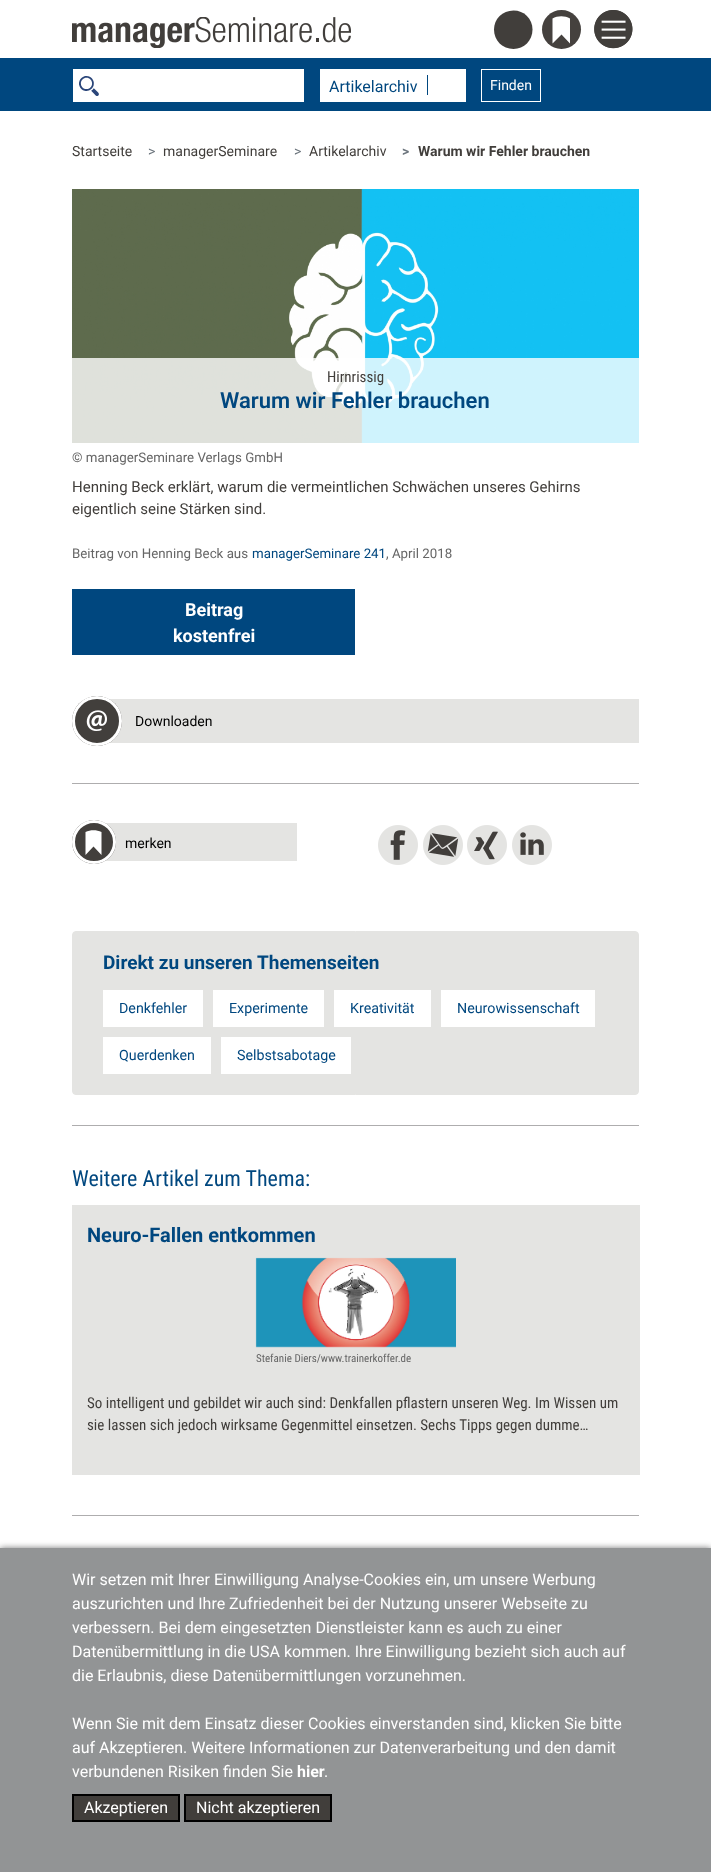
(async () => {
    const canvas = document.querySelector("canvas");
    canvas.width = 711;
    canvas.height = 1872;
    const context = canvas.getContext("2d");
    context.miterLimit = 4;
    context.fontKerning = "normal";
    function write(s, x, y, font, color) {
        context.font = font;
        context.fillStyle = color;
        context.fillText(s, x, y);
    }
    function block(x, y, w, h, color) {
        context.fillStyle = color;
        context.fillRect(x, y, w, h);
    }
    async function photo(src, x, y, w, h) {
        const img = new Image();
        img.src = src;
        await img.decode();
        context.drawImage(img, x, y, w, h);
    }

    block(0, 0, 711, 1872, "rgb(255, 255, 255)");
    await photo("media/1.png", 72, 17, 279, 31);
    context.fillStyle = "rgb(65, 62, 59)";
    context.beginPath();
    context.moveTo(494, 29.5);
    context.bezierCurveTo(494, 19, 502.5, 10.5, 513.5, 10.5);
    context.bezierCurveTo(524, 10.5, 532.5, 18.5, 532.5, 29.5);
    context.bezierCurveTo(532.5, 40.5, 524, 49, 513.5, 49);
    context.bezierCurveTo(502.5, 49, 494, 40.5, 494, 29.5);
    context.fill();
    context.fillStyle = "rgb(69, 65, 62)";
    context.beginPath();
    context.arc(561.5, 29.5, 19.5, 0, Math.PI * 2);
    context.fill();
    context.fillStyle = "rgb(255, 255, 255)";
    context.beginPath();
    context.moveTo(561.5, 34.5);
    context.lineTo(570, 43.5);
    context.lineTo(570, 18.5);
    context.bezierCurveTo(565, 15.5, 557.5, 15.5, 552.5, 18.5);
    context.lineTo(552.5, 43.5);
    context.closePath();
    context.fill();
    await photo("media/2.png", 594, 10, 39, 39);
    block(0, 58, 711, 53, "rgb(0, 71, 127)");
    block(73, 69, 231, 33, "rgb(255, 255, 255)");
    await photo("media/3.png", 79, 76, 20, 20);
    block(320, 69, 146, 33, "rgb(255, 255, 255)");
    write("Artikelarchiv", 329, 92, "16px Roboto", "rgb(0, 71, 127)");
    block(427, 75, 1, 20, "rgb(0, 71, 127)");
    context.strokeStyle = "rgb(255, 255, 255)";
    context.strokeRect(481.5, 69.5, 59, 32);
    write("Finden", 490, 90, "14px Roboto", "rgb(255, 255, 255)");
    write("Startseite", 72, 156, "14px Roboto", "rgb(65, 62, 59)");
    write(">", 148, 156, "14px Roboto", "rgb(108, 117, 125)");
    write("managerSeminare", 163, 156, "14px Roboto", "rgb(65, 62, 59)");
    write(">", 294, 156, "14px Roboto", "rgb(108, 117, 125)");
    write("Artikelarchiv", 309, 156, "14px Roboto", "rgb(65, 62, 59)");
    write(">", 402, 156, "bold 14px Roboto", "rgb(108, 117, 125)");
    write("Warum wir Fehler brauchen", 418, 156, "bold 14px Roboto", "rgb(65, 62, 59)");
    await photo("media/4.png", 72, 189, 567, 254);
    block(72, 358, 567, 85, "rgba(255, 255, 255, 0.8)");
    write("Hirnrissig", 327, 382, "15px Roboto Condensed", "rgb(65, 62, 59)");
    write("Warum wir Fehler brauchen", 220, 408, "600 22px Roboto", "rgb(0, 71, 127)");
    write("© managerSeminare Verlags GmbH", 72, 462, "13.3px Roboto", "rgb(102, 102, 102)");
    write("Henning Beck erklärt, warum die vermeintlichen Schwächen unseres Gehirns", 72, 492, "15px Roboto", "rgb(65, 62, 59)");
    write("eigentlich seine Stärken sind.", 72, 514, "15px Roboto", "rgb(65, 62, 59)");
    write("Beitrag von Henning Beck aus", 72, 558, "13.3px Roboto", "rgb(102, 102, 102)");
    write("managerSeminare 241", 252, 558, "13.3px Roboto", "rgb(0, 71, 127)");
    write(", April 2018", 386, 558, "13.3px Roboto", "rgb(102, 102, 102)");
    block(72, 589, 283, 66, "rgb(0, 71, 127)");
    write("Beitrag", 185, 616, "bold 18px 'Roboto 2'", "rgb(255, 255, 255)");
    write("kostenfrei", 173, 642, "bold 18px 'Roboto 2'", "rgb(255, 255, 255)");
    block(109, 699, 530, 44, "rgb(228, 228, 226)");
    context.fillStyle = "rgb(66, 63, 60)";
    context.beginPath();
    context.arc(97, 721, 25, 0, Math.PI * 2);
    context.fill();
    await photo("media/5.png", 86, 710, 21, 21);
    context.beginPath();
    context.arc(97, 721, 23.5, 0, Math.PI * 2);
    context.lineWidth = 3;
    context.stroke();
    write("Downloaden", 135, 726, "14px Roboto", "rgb(0, 0, 0)");
    block(72, 783, 567, 1, "rgb(174, 173, 174)");
    block(105, 823, 192, 38, "rgb(228, 228, 226)");
    context.fillStyle = "rgb(66, 63, 60)";
    context.beginPath();
    context.arc(94, 842, 22, 0, Math.PI * 2);
    context.fill();
    context.fillStyle = "rgb(255, 255, 255)";
    context.beginPath();
    context.moveTo(93.5, 846.5);
    context.lineTo(101.5, 855);
    context.lineTo(101.5, 832);
    context.bezierCurveTo(96.5, 829.5, 90.5, 829.5, 85.5, 832);
    context.lineTo(85.5, 855);
    context.closePath();
    context.fill();
    context.beginPath();
    context.arc(94, 842, 20.5, 0, Math.PI * 2);
    context.stroke();
    write("merken", 125, 848, "14px Roboto", "rgb(0, 0, 0)");
    await photo("media/6.png", 378, 825, 40, 40);
    await photo("media/7.png", 423, 825, 40, 40);
    await photo("media/8.png", 467, 825, 40, 40);
    await photo("media/9.png", 512, 825, 40, 40);
    context.fillStyle = "rgb(228, 228, 226)";
    context.beginPath();
    context.roundRect(72.5, 931.5, 566, 163, 3.5);
    context.fill();
    context.strokeStyle = "rgb(228, 228, 226)";
    context.lineWidth = 1;
    context.stroke();
    write("Direkt zu unseren Themenseiten", 103, 969, "bold 19px 'Roboto 2'", "rgb(0, 71, 127)");
    block(103, 990, 100, 37, "rgb(255, 255, 255)");
    write("Denkfehler", 119, 1013, "14.25px Roboto", "rgb(0, 71, 127)");
    block(213, 990, 111, 37, "rgb(255, 255, 255)");
    write("Experimente", 229, 1013, "14.25px Roboto", "rgb(0, 71, 127)");
    block(334, 990, 97, 37, "rgb(255, 255, 255)");
    write("Kreativität", 350, 1013, "14.25px Roboto", "rgb(0, 71, 127)");
    block(441, 990, 154, 37, "rgb(255, 255, 255)");
    write("Neurowissenschaft", 457, 1013, "14.25px Roboto", "rgb(0, 71, 127)");
    block(103, 1037, 108, 37, "rgb(255, 255, 255)");
    write("Querdenken", 119, 1060, "14.25px Roboto", "rgb(0, 71, 127)");
    block(221, 1037, 130, 37, "rgb(255, 255, 255)");
    write("Selbstsabotage", 237, 1060, "14.25px Roboto", "rgb(0, 71, 127)");
    block(72, 1125, 567, 1, "rgb(174, 173, 174)");
    write("Weitere Artikel zum Thema:", 72, 1186, "22px Roboto Condensed", "rgb(0, 71, 127)");
    block(72, 1205, 568, 270, "rgb(228, 228, 226)");
    write("Neuro-Fallen entkommen", 87, 1242, "bold 20px 'Roboto 2'", "rgb(0, 71, 127)");
    await photo("media/10.png", 255, 1257, 201, 91);
    write("Stefanie Diers/www.trainerkoffer.de", 256, 1362, "11px Roboto Condensed", "rgb(102, 102, 102)");
    write("So intelligent und gebildet wir auch sind: Denkfallen pflastern unseren Weg. Im Wissen um", 87, 1408, "15px Roboto Condensed", "rgb(65, 62, 59)");
    write("sie lassen sich jedoch wirksame Gegenmittel einsetzen. Sechs Tipps gegen dumme…", 87, 1430, "15px Roboto Condensed", "rgb(65, 62, 59)");
    block(72, 1515, 567, 1, "rgb(174, 173, 174)");
    context.fillStyle = "rgba(30, 30, 30, 0.6)";
    context.filter = "blur(3px)";
    context.beginPath();
    context.rect(0, 1548, 711, 324);
    context.fill();
    context.filter = "none";
    block(0, 1548, 711, 324, "rgb(146, 148, 149)");
    write("Wir setzen mit Ihrer Einwilligung Analyse-Cookies ein, um unsere Werbung", 72, 1585, "16px Roboto", "rgb(255, 255, 255)");
    write("auszurichten und Ihre Zufriedenheit bei der Nutzung unserer Webseite zu", 72, 1609, "16px Roboto", "rgb(255, 255, 255)");
    write("verbessern. Bei dem eingesetzten Dienstleister kann es auch zu einer", 72, 1633, "16px Roboto", "rgb(255, 255, 255)");
    write("Datenübermittlung in die USA kommen. Ihre Einwilligung bezieht sich auch auf", 72, 1657, "16px Roboto", "rgb(255, 255, 255)");
    write("die Erlaubnis, diese Datenübermittlungen vorzunehmen.", 72, 1681, "16px Roboto", "rgb(255, 255, 255)");
    write("Wenn Sie mit dem Einsatz dieser Cookies einverstanden sind, klicken Sie bitte", 72, 1729, "16px Roboto", "rgb(255, 255, 255)");
    write("auf Akzeptieren. Weitere Informationen zur Datenverarbeitung und den damit", 72, 1753, "16px Roboto", "rgb(255, 255, 255)");
    write("verbundenen Risiken finden Sie", 72, 1777, "16px Roboto", "rgb(255, 255, 255)");
    write("hier", 297, 1777, "bold 16px Roboto", "rgb(255, 255, 255)");
    write(".", 324, 1777, "16px Roboto", "rgb(255, 255, 255)");
    context.fillStyle = "rgb(65, 62, 59)";
    context.beginPath();
    context.rect(73, 1795, 106, 26);
    context.fill();
    context.strokeStyle = "rgb(0, 0, 0)";
    context.lineWidth = 2;
    context.stroke();
    write("Akzeptieren", 84, 1813, "16px Roboto", "rgb(255, 255, 255)");
    context.fillStyle = "rgb(65, 62, 59)";
    context.beginPath();
    context.rect(185, 1795, 146, 26);
    context.fill();
    context.stroke();
    write("Nicht akzeptieren", 196, 1813, "16px Roboto", "rgb(255, 255, 255)");
})();
